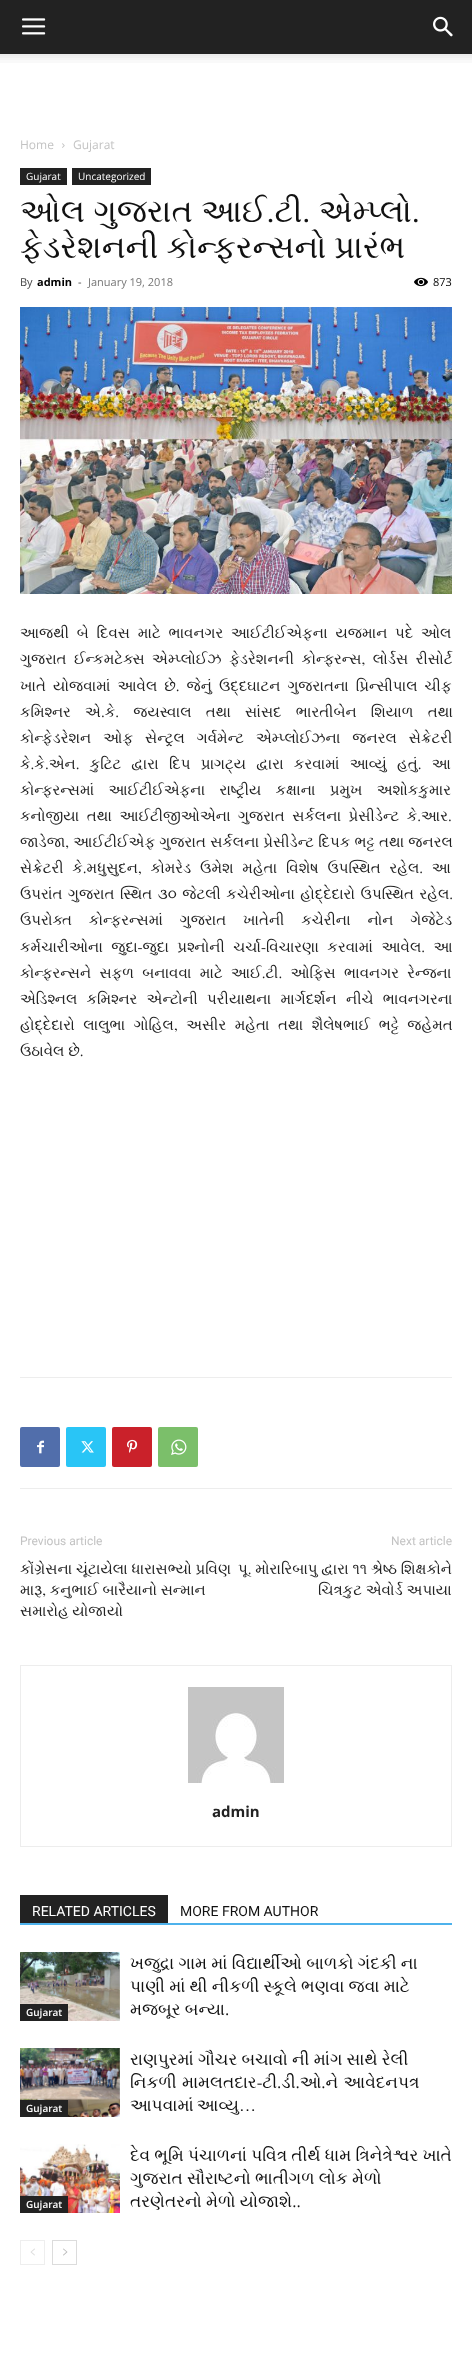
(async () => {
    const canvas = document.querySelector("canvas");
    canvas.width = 472;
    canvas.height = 2363;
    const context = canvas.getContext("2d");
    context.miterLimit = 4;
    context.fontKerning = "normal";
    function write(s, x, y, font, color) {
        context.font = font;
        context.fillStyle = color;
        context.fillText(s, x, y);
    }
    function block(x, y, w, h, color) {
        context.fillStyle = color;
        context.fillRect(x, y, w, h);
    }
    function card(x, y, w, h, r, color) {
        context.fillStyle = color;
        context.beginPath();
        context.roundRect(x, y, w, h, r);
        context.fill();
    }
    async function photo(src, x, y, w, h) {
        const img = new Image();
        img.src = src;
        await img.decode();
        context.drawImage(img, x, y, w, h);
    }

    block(0, 0, 472, 2363, "rgb(255, 255, 255)");
    block(0, 0, 472, 54, "rgb(34, 34, 34)");
    await photo("media/1.png", 22, 18, 24, 17);
    await photo("media/2.png", 433, 16, 20, 21);
    await photo("media/3.png", 0, 54, 472, 9);
    write("Home", 20, 149, "12px Open Sans", "rgb(195, 195, 195)");
    await photo("media/4.png", 62, 143, 3, 5);
    write("Gujarat", 73, 149, "12px Open Sans", "rgb(195, 195, 195)");
    block(20, 168, 47, 17, "rgb(34, 34, 34)");
    write("Gujarat", 26, 180, "10px Open Sans", "rgb(255, 255, 255)");
    block(72, 168, 79, 17, "rgb(34, 34, 34)");
    write("Uncategorized", 78, 180, "10px Open Sans", "rgb(255, 255, 255)");
    context.wordSpacing = "0.5px";
    write("ઓલ ગુજરાત આઈ.ટી. એમ્પ્લો.", 20, 222, "32px FreeSerif", "rgb(17, 17, 17)");
    context.wordSpacing = "0px";
    write("ફેડરેશનની કોન્ફરન્સનો પ્રારંભ", 20, 258, "32px FreeSerif", "rgb(17, 17, 17)");
    write("By", 20, 286, "11px Open Sans", "rgb(68, 68, 68)");
    write("admin", 37, 286, "bold 11px Open Sans", "rgb(0, 0, 0)");
    write("-", 78, 286, "11px Open Sans", "rgb(68, 68, 68)");
    write("January 19, 2018", 88, 286, "11px Open Sans", "rgb(118, 118, 118)");
    await photo("media/5.png", 414, 277, 14, 10);
    write("873", 433, 286, "11px Open Sans", "rgb(0, 0, 0)");
    await photo("media/6.png", 20, 307, 432, 287);
    context.wordSpacing = "4px";
    write("આજથી બે દિવસ માટે ભાવનગર આઈટીઈએફના યજમાન પદે ઓલ", 20, 638, "15px FreeSerif", "rgb(34, 34, 34)");
    context.wordSpacing = "3.75px";
    write("ગુજરાત ઈન્કમટેક્સ એમ્પ્લોઈઝ ફેડરેશનની કોન્ફરન્સ, લોર્ડસ રીસોર્ટ", 20, 664, "15px FreeSerif", "rgb(34, 34, 34)");
    context.wordSpacing = "3.25px";
    write("ખાતે યોજવામાં આવેલ છે. જેનું ઉદ્દઘાટન ગુજરાતના પ્રિન્સીપાલ ચીફ", 20, 691, "15px FreeSerif", "rgb(34, 34, 34)");
    context.wordSpacing = "10.5px";
    write("કમિશ્નર એ.કે. જયસ્વાલ તથા સાંસદ ભારતીબેન શિયાળ તથા", 20, 717, "15px FreeSerif", "rgb(34, 34, 34)");
    context.wordSpacing = "8.25px";
    write("કોન્ફેડરેશન ઓફ સેન્ટ્રલ ગર્વમેન્ટ એમ્પ્લોઈઝના જનરલ સેક્રેટરી", 20, 743, "15px FreeSerif", "rgb(34, 34, 34)");
    context.wordSpacing = "6.5px";
    write("કે.કે.એન. કુટિટ દ્વારા દિપ પ્રાગટ્ય દ્વારા કરવામાં આવ્યું હતું. આ", 20, 769, "15px FreeSerif", "rgb(34, 34, 34)");
    context.wordSpacing = "10.5px";
    write("કોન્ફરન્સમાં આઈટીઈએફના રાષ્ટ્રીય કક્ષાના પ્રમુખ અશોકકુમાર", 20, 795, "15px FreeSerif", "rgb(34, 34, 34)");
    context.wordSpacing = "3.75px";
    write("કનોજીયા તથા આઈટીજીઓએના ગુજરાત સર્કલના પ્રેસીડેન્ટ કે.આર.", 20, 821, "15px FreeSerif", "rgb(34, 34, 34)");
    context.wordSpacing = "0.5px";
    write("જાડેજા, આઈટીઈએફ ગુજરાત સર્કલના પ્રેસીડેન્ટ દિપક ભટ્ટ તથા જનરલ", 20, 847, "15px FreeSerif", "rgb(34, 34, 34)");
    context.wordSpacing = "5px";
    write("સેક્રેટરી કે.મધુસુદન, કોમરેડ ઉમેશ મહેતા વિશેષ ઉપસ્થિત રહેલ. આ", 20, 873, "15px FreeSerif", "rgb(34, 34, 34)");
    context.wordSpacing = "1.75px";
    write("ઉપરાંત ગુજરાત સ્થિત ૩૦ જેટલી કચેરીઓના હોદ્દેદારો ઉપસ્થિત રહેલ.", 20, 899, "15px FreeSerif", "rgb(34, 34, 34)");
    context.wordSpacing = "13px";
    write("ઉપરોક્ત કોન્ફરન્સમાં ગુજરાત ખાતેની કચેરીના નોન ગેજેટેડ", 20, 925, "15px FreeSerif", "rgb(34, 34, 34)");
    context.wordSpacing = "4.75px";
    write("કર્મચારીઓના જુદા-જુદા પ્રશ્નોની ચર્ચા-વિચારણા કરવામાં આવેલ. આ", 20, 952, "15px FreeSerif", "rgb(34, 34, 34)");
    context.wordSpacing = "4.5px";
    write("કોન્ફરન્સને સફળ બનાવવા માટે આઈ.ટી. ઓફિસ ભાવનગર રેન્જના", 20, 978, "15px FreeSerif", "rgb(34, 34, 34)");
    context.wordSpacing = "5.5px";
    write("એડિશ્નલ કમિશ્નર એન્ટોની પરીયાથના માર્ગદર્શન નીચે ભાવનગરના", 20, 1004, "15px FreeSerif", "rgb(34, 34, 34)");
    context.wordSpacing = "4.75px";
    write("હોદ્દેદારો લાલુભા ગોહિલ, અસીર મહેતા તથા શૈલેષભાઈ ભટ્ટે જહેમત", 20, 1030, "15px FreeSerif", "rgb(34, 34, 34)");
    context.wordSpacing = "0px";
    write("ઉઠાવેલ છે.", 20, 1056, "15px FreeSerif", "rgb(34, 34, 34)");
    block(20, 1377, 432, 1, "rgb(237, 237, 237)");
    block(20, 1488, 432, 1, "rgb(237, 237, 237)");
    card(20, 1427, 40, 40, 2, "rgb(81, 110, 171)");
    await photo("media/7.png", 37, 1440, 7, 14);
    card(66, 1427, 40, 40, 2, "rgb(41, 197, 246)");
    await photo("media/8.png", 81, 1441, 13, 12);
    card(112, 1427, 40, 40, 2, "rgb(202, 33, 42)");
    await photo("media/9.png", 127, 1439, 11, 14);
    card(158, 1427, 40, 40, 2, "rgb(123, 191, 106)");
    await photo("media/10.png", 171, 1439, 16, 16);
    write("Previous article", 20, 1545, "12px Roboto", "rgb(195, 195, 195)");
    write("કોંગ્રેસના ચૂંટાયેલા ધારાસભ્યો પ્રવિણ", 20, 1574, "15px FreeSerif", "rgb(34, 34, 34)");
    write("મારૂ, કનુભાઈ બારૈયાનો સન્માન", 20, 1595, "15px FreeSerif", "rgb(34, 34, 34)");
    write("સમારોહ યોજાયો", 20, 1616, "15px FreeSerif", "rgb(34, 34, 34)");
    write("Next article", 391, 1545, "12px Roboto", "rgb(195, 195, 195)");
    write("પૂ. મોરારિબાપુ દ્વારા ૧૧ શ્રેષ્ઠ શિક્ષકોને", 238, 1574, "15px FreeSerif", "rgb(34, 34, 34)");
    write("ચિત્રકુટ એવોર્ડ અપાયા", 318, 1595, "15px FreeSerif", "rgb(34, 34, 34)");
    context.strokeStyle = "rgb(237, 237, 237)";
    context.strokeRect(20.5, 1665.5, 431, 181);
    await photo("media/11.png", 188, 1687, 96, 96);
    write("admin", 212, 1817, "bold 15px Open Sans", "rgb(34, 34, 34)");
    block(20, 1923, 432, 2, "rgb(77, 178, 236)");
    block(20, 1895, 148, 28, "rgb(34, 34, 34)");
    write("RELATED ARTICLES", 32, 1916, "14px Roboto", "rgb(255, 255, 255)");
    write("MORE FROM AUTHOR", 180, 1916, "14px Roboto", "rgb(17, 17, 17)");
    await photo("media/12.png", 20, 1952, 100, 69);
    block(20, 2004, 48, 17, "rgb(34, 34, 34)");
    write("Gujarat", 26, 2016, "600 10px Open Sans", "rgb(255, 255, 255)");
    write("ખજુદ્રા ગામ માં વિદ્યાર્થીઓ બાળકો ગંદકી ના", 130, 1969, "17px FreeSerif", "rgb(17, 17, 17)");
    write("પાણી માં થી નીકળી સ્કૂલે ભણવા જવા માટે", 130, 1992, "17px FreeSerif", "rgb(17, 17, 17)");
    write("મજબૂર બન્યા.", 130, 2015, "17px FreeSerif", "rgb(17, 17, 17)");
    await photo("media/13.png", 20, 2048, 100, 69);
    block(20, 2100, 48, 17, "rgb(34, 34, 34)");
    write("Gujarat", 26, 2112, "600 10px Open Sans", "rgb(255, 255, 255)");
    write("રાણપુરમાં ગૌચર બચાવો ની માંગ સાથે રેલી", 130, 2065, "17px FreeSerif", "rgb(17, 17, 17)");
    context.wordSpacing = "1px";
    write("નિકળી મામલતદાર-ટી.ડી.ઓ.ને આવેદનપત્ર", 130, 2088, "17px FreeSerif", "rgb(17, 17, 17)");
    context.wordSpacing = "-1px";
    write("આપવામાં આવ્યુ…", 130, 2111, "17px FreeSerif", "rgb(17, 17, 17)");
    await photo("media/14.png", 20, 2144, 100, 69);
    block(20, 2196, 48, 17, "rgb(34, 34, 34)");
    context.wordSpacing = "0px";
    write("Gujarat", 26, 2208, "600 10px Open Sans", "rgb(255, 255, 255)");
    write("દેવ ભૂમિ પંચાળનાં પવિત્ર તીર્થ ધામ ત્રિનેત્રેશ્વર ખાતે", 130, 2161, "17px FreeSerif", "rgb(17, 17, 17)");
    write("ગુજરાત સૌરાષ્ટનો ભાતીગળ લોક મેળો", 130, 2184, "17px FreeSerif", "rgb(17, 17, 17)");
    write("તરણેતરનો મેળો યોજાશે..", 130, 2207, "17px FreeSerif", "rgb(17, 17, 17)");
    context.strokeStyle = "rgb(238, 238, 238)";
    context.strokeRect(20.5, 2240.5, 24, 24);
    await photo("media/15.png", 30, 2248, 5, 8);
    context.strokeStyle = "rgb(220, 220, 220)";
    context.strokeRect(52.5, 2240.5, 24, 24);
    await photo("media/16.png", 63, 2248, 5, 8);
})();
